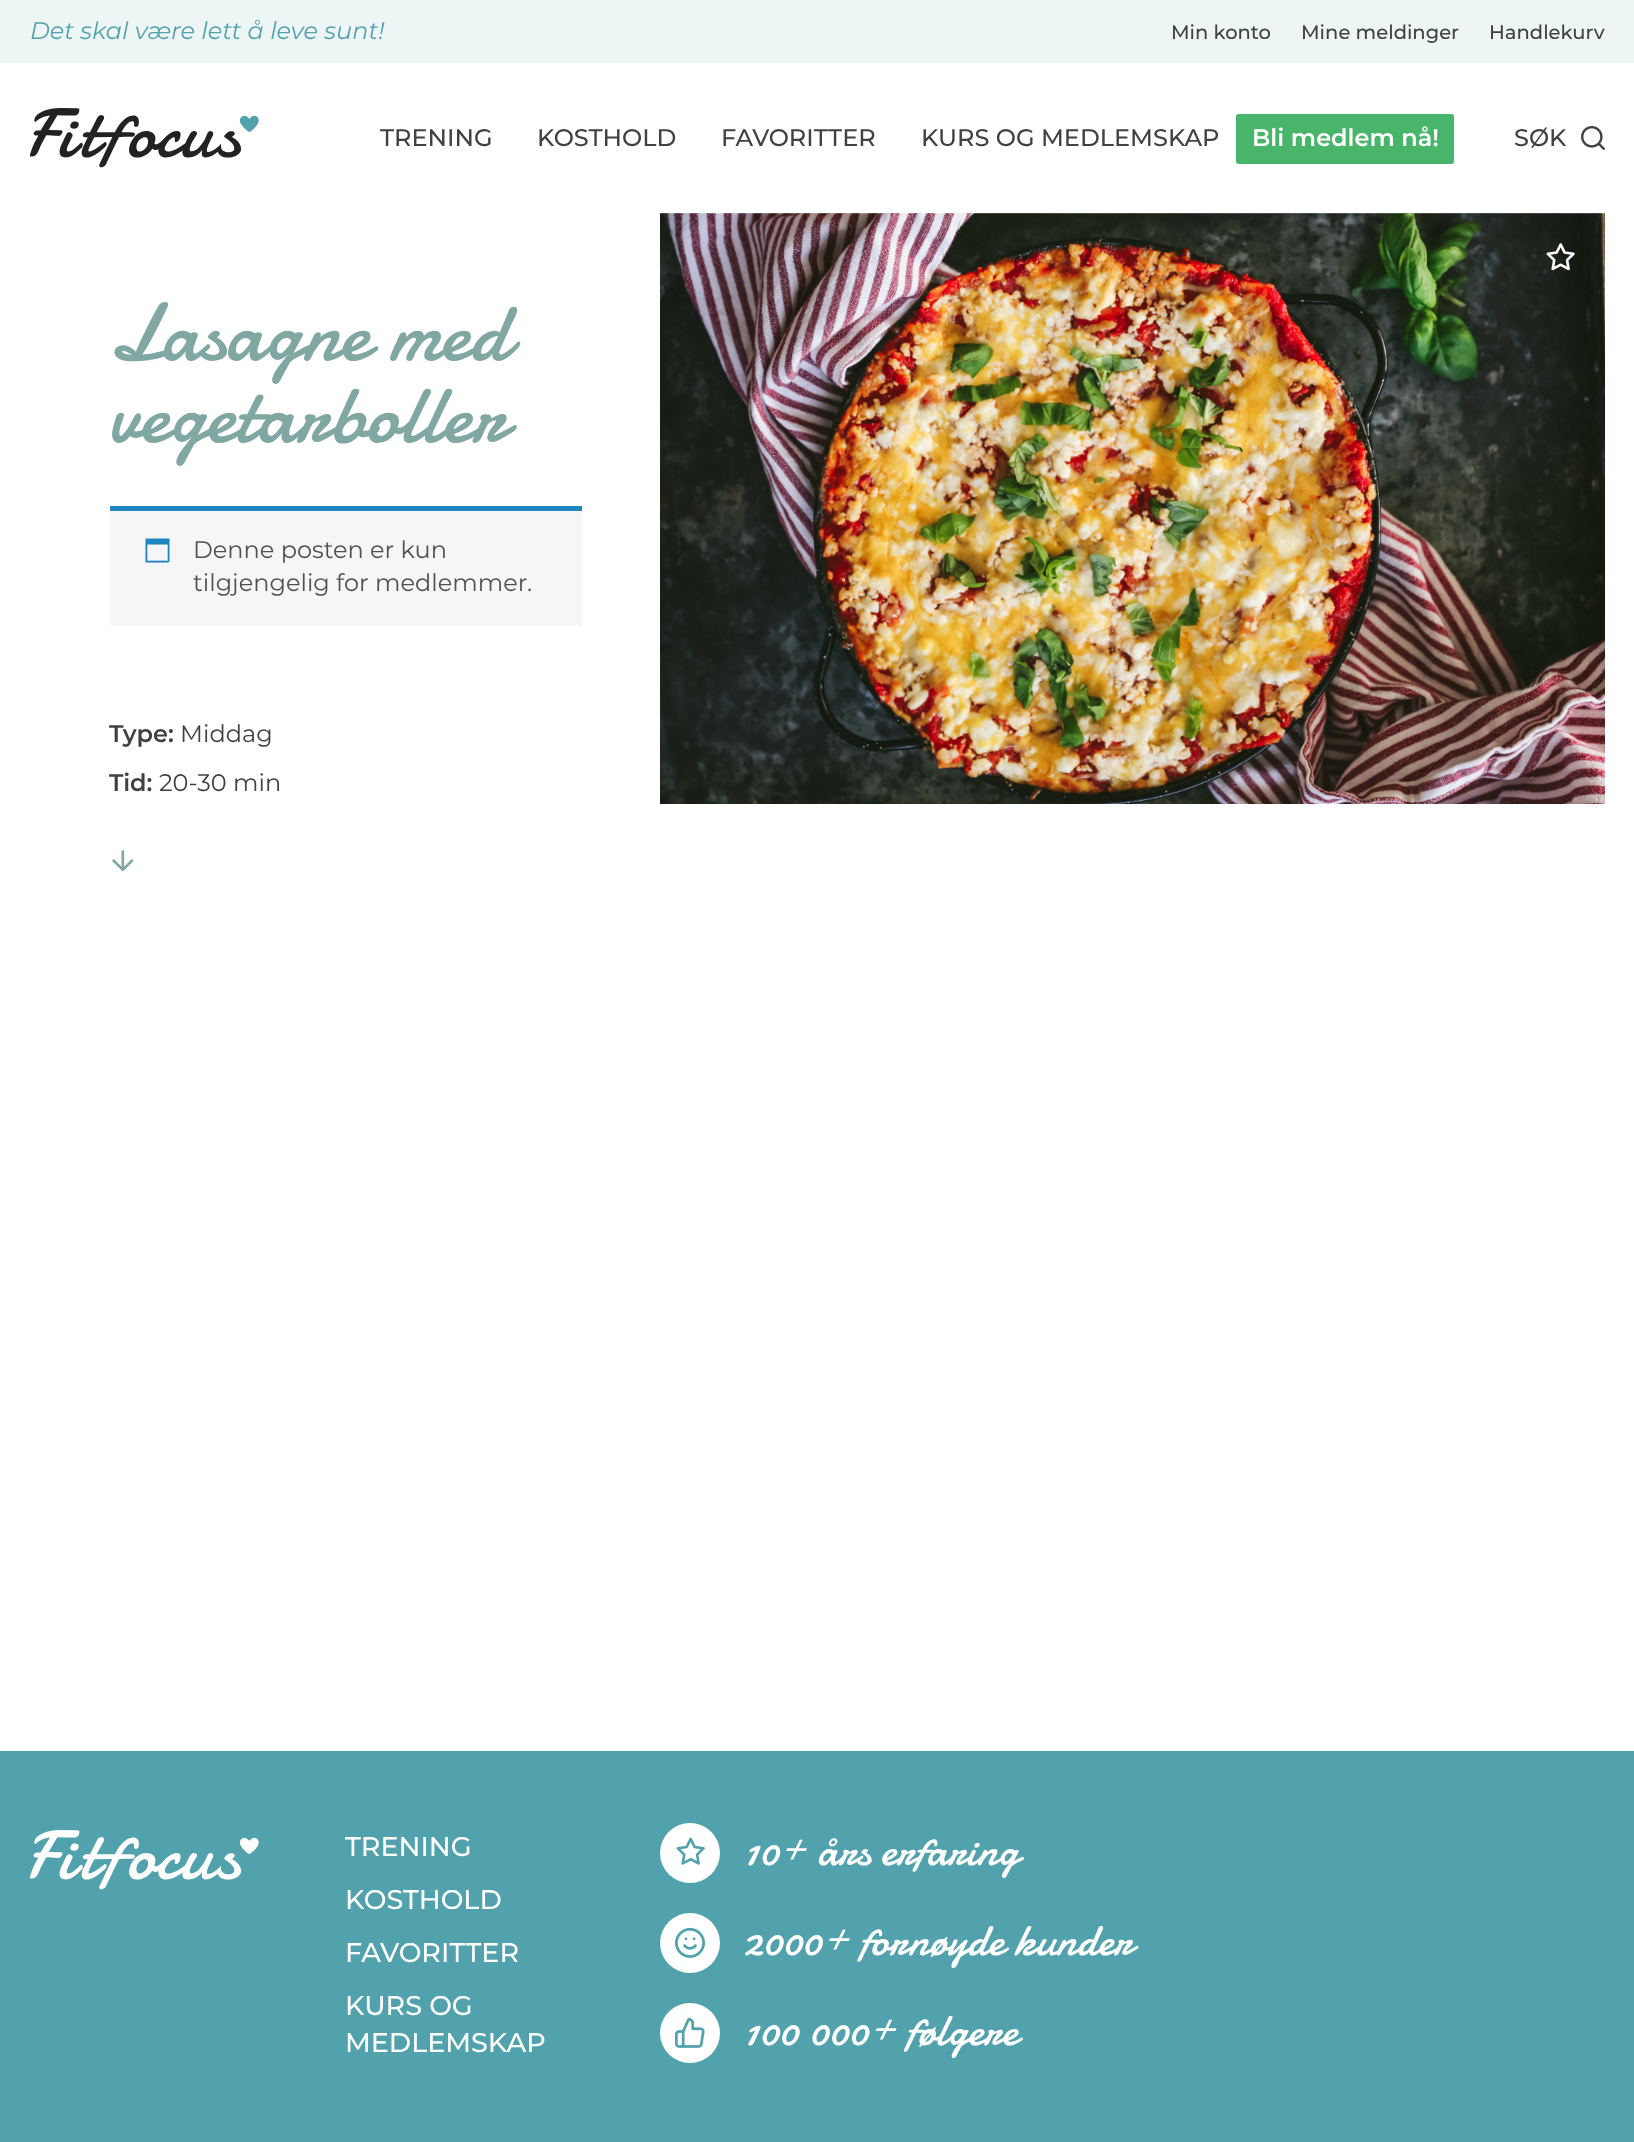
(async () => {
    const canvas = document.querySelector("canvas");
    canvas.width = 1634;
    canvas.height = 2142;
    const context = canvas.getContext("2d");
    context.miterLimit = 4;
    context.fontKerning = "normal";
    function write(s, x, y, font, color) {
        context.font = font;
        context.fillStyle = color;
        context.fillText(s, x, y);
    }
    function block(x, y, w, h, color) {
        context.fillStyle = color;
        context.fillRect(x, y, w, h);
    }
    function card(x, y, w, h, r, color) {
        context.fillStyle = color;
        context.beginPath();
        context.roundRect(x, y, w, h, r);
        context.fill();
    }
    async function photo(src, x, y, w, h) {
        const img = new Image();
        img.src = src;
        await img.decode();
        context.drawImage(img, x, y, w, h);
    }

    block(0, 0, 1634, 2142, "rgb(255, 255, 255)");
    block(0, 0, 1634, 63, "rgb(238, 246, 245)");
    write("Det skal være lett å leve sunt!", 30, 39, "italic 24px Montserrat", "rgb(82, 162, 174)");
    write("Min konto", 1171, 39, "500 19.5px Montserrat", "rgb(65, 64, 66)");
    write("Mine meldinger", 1301, 39, "500 19.5px Montserrat", "rgb(65, 64, 66)");
    write("Handlekurv", 1489, 39, "500 19.5px Montserrat", "rgb(65, 64, 66)");
    await photo("media/1.png", 30, 108, 229, 60);
    write("TRENING", 380, 146, "500 24px Montserrat", "rgb(65, 64, 66)");
    write("KOSTHOLD", 537, 146, "500 24px Montserrat", "rgb(65, 64, 66)");
    write("FAVORITTER", 721, 146, "500 24px Montserrat", "rgb(65, 64, 66)");
    write("KURS OG MEDLEMSKAP", 921, 146, "500 24px Montserrat", "rgb(65, 64, 66)");
    card(1236, 114, 218, 50, 3, "rgb(73, 181, 107)");
    write("Bli medlem nå!", 1252, 146, "600 24px Montserrat", "rgb(255, 255, 255)");
    write("SØK", 1514, 146, "500 24px Montserrat", "rgb(65, 64, 66)");
    await photo("media/2.png", 1581, 126, 24, 24);
    write("Lasagne med", 109, 360, "82.5px Damion", "rgb(128, 167, 162)");
    write("vegetarboller", 109, 442, "82.5px Damion", "rgb(128, 167, 162)");
    block(110, 511, 472, 115, "rgb(246, 245, 248)");
    block(110, 506, 472, 5, "rgb(30, 133, 190)");
    await photo("media/3.png", 145, 538, 25, 25);
    write("Denne posten er kun", 193, 558, "24px Montserrat", "rgb(81, 81, 81)");
    write("tilgjengelig for medlemmer.", 193, 591, "24px Montserrat", "rgb(81, 81, 81)");
    write("Type:", 109, 742, "600 24px Montserrat", "rgb(65, 64, 66)");
    write("Middag", 180, 742, "24px Montserrat", "rgb(65, 64, 66)");
    write("Tid:", 109, 791, "600 24px Montserrat", "rgb(65, 64, 66)");
    write("20-30 min", 159, 791, "24px Montserrat", "rgb(65, 64, 66)");
    await photo("media/4.png", 112, 850, 22, 22);
    await photo("media/5.png", 660, 213, 945, 591);
    await photo("media/6.png", 1546, 243, 29, 28);
    block(0, 1751, 1634, 391, "rgb(82, 162, 174)");
    await photo("media/7.png", 30, 1830, 229, 60);
    write("TRENING", 345, 1856, "500 27px Montserrat", "rgb(255, 255, 255)");
    write("KOSTHOLD", 345, 1909, "500 27px Montserrat", "rgb(255, 255, 255)");
    write("FAVORITTER", 345, 1962, "500 27px Montserrat", "rgb(255, 255, 255)");
    write("KURS OG", 345, 2015, "500 27px Montserrat", "rgb(255, 255, 255)");
    write("MEDLEMSKAP", 345, 2052, "500 27px Montserrat", "rgb(255, 255, 255)");
    context.beginPath();
    context.arc(690, 1853, 30, 0, Math.PI * 2);
    context.fill();
    await photo("media/8.png", 676, 1837, 29, 28);
    write("10+ års erfaring", 743, 1865, "45px Damion", "rgb(255, 255, 255)");
    context.beginPath();
    context.arc(690, 1943, 30, 0, Math.PI * 2);
    context.fill();
    await photo("media/9.png", 675, 1927, 30, 31);
    write("2000+ fornøyde kunder", 743, 1955, "45px Damion", "rgb(255, 255, 255)");
    context.beginPath();
    context.arc(690, 2033, 30, 0, Math.PI * 2);
    context.fill();
    await photo("media/10.png", 675, 2017, 30, 31);
    write("100 000+ følgere", 743, 2045, "45px Damion", "rgb(255, 255, 255)");
})();
